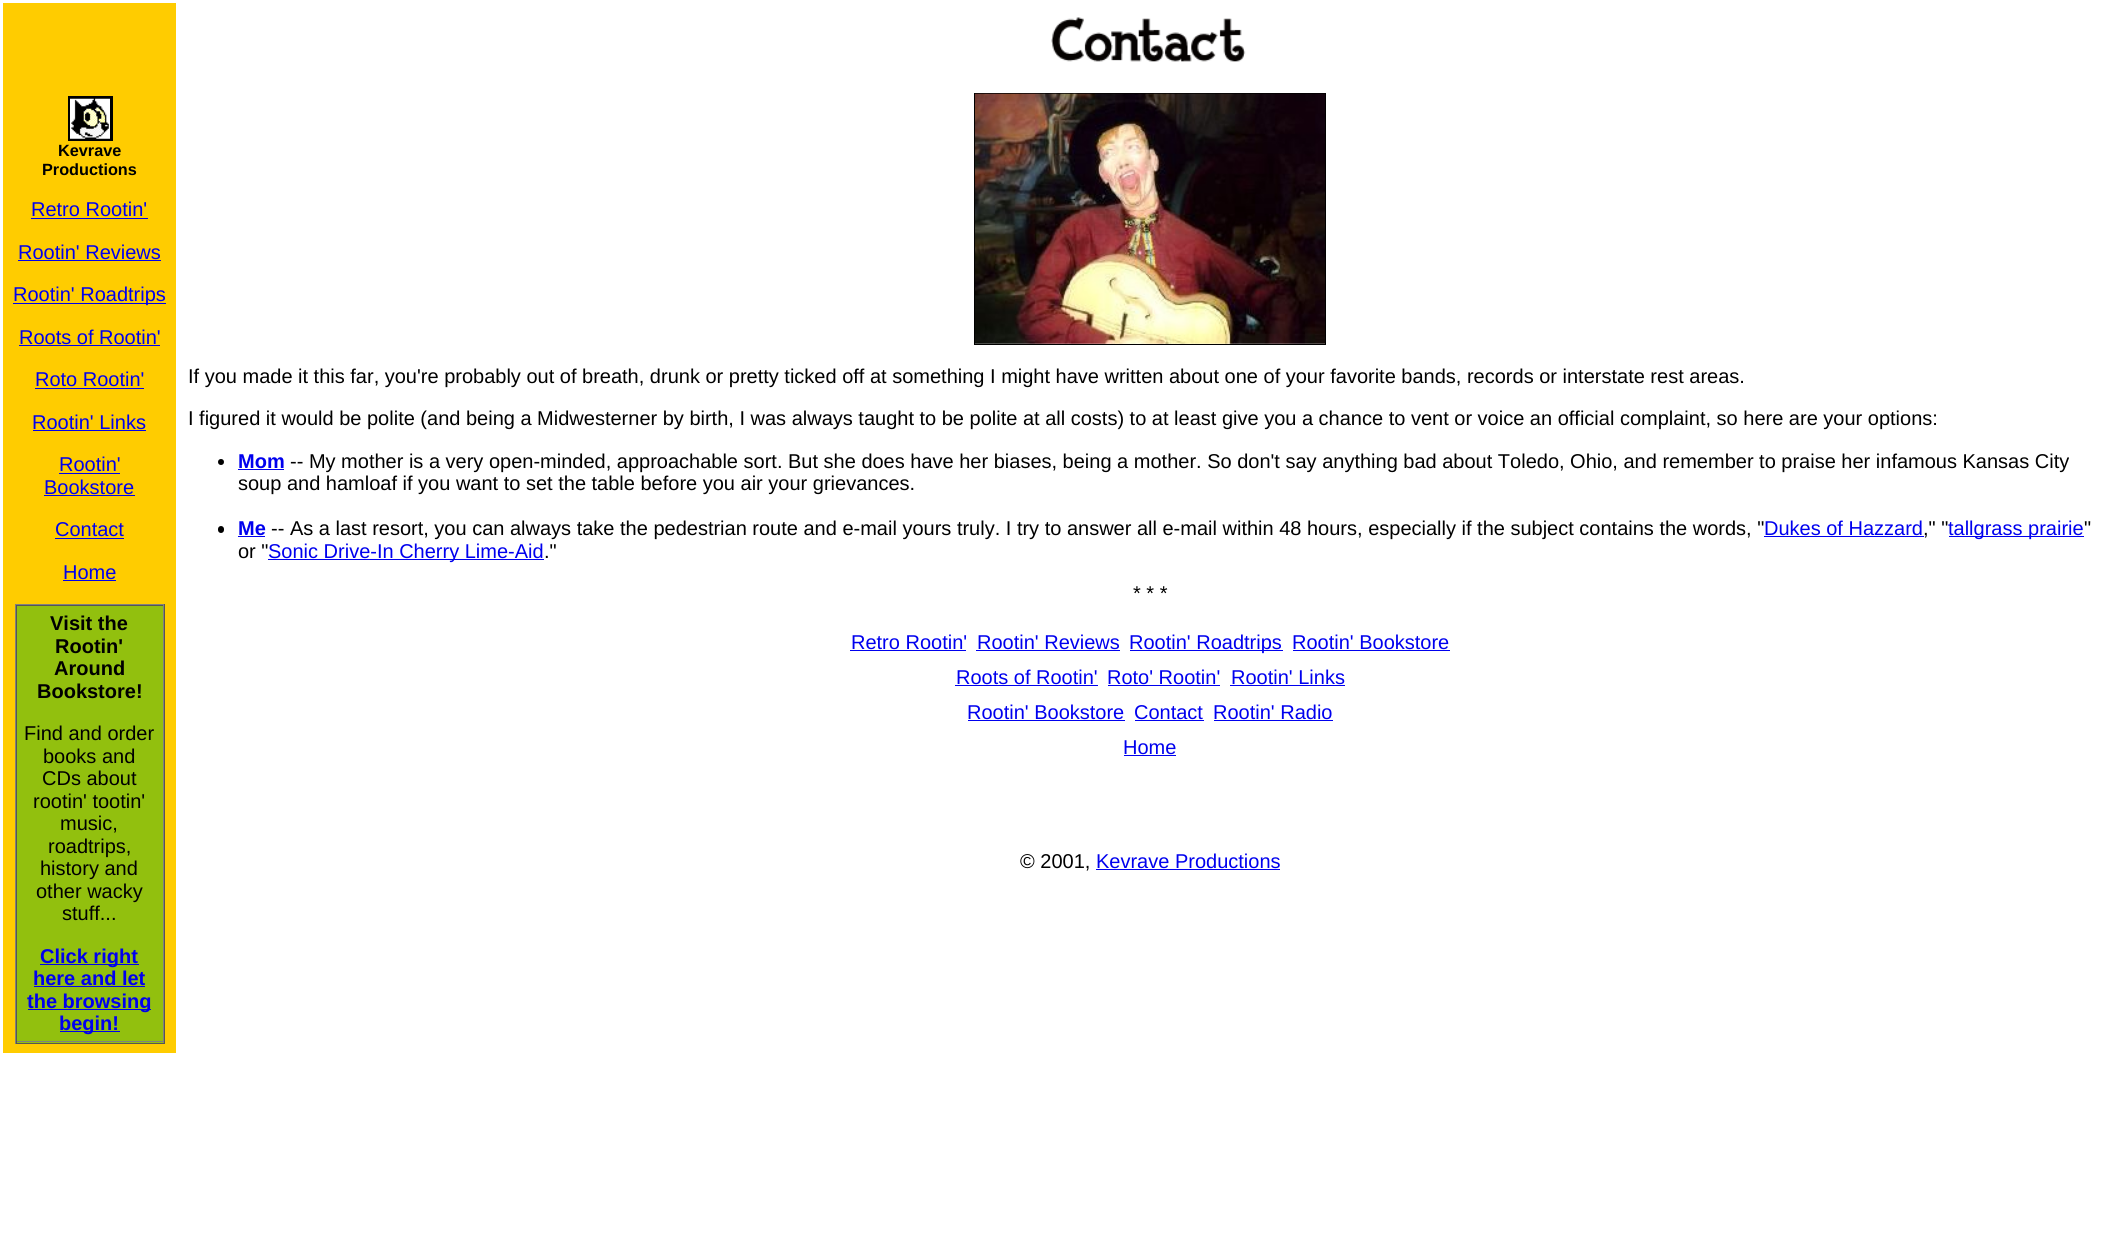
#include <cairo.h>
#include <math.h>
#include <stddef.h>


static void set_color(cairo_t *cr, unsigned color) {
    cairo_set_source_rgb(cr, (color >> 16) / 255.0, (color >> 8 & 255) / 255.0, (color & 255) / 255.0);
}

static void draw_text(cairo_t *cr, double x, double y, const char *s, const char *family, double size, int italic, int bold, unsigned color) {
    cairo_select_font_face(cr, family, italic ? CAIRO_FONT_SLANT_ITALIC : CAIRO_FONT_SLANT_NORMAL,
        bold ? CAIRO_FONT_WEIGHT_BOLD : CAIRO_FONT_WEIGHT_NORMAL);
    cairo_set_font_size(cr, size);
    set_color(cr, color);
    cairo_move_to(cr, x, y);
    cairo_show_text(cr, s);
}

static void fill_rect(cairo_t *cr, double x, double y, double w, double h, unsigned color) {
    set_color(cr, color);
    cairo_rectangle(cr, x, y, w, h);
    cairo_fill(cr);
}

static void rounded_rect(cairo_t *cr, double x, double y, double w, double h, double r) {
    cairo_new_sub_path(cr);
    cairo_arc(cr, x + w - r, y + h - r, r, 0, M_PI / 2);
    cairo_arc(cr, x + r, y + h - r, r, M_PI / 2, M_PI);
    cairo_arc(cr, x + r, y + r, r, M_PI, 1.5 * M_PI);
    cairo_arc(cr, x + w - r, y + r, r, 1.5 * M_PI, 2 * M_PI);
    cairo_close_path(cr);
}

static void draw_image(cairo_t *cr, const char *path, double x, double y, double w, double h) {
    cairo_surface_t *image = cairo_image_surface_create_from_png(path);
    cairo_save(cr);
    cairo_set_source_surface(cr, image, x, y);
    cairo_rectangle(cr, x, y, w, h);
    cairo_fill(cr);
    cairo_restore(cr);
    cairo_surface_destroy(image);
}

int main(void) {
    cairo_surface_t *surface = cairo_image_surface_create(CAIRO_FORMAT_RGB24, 2123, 1250);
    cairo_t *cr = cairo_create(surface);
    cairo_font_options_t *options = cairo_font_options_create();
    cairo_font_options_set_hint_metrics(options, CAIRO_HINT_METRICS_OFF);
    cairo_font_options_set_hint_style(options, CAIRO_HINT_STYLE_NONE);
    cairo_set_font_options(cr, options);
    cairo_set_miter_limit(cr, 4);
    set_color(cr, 0xFFFFFF);
    cairo_paint(cr);
    fill_rect(cr, 3, 3, 173, 1050, 0xFFCC00);
    cairo_rectangle(cr, 69.5, 97.5, 42, 42);
    set_color(cr, 0x000000);
    cairo_set_line_width(cr, 3);
    cairo_stroke(cr);
    draw_image(cr, "assets/img1.png", 70, 98, 40, 41);
    draw_text(cr, 58, 156, "Kevrave", "Liberation Sans", 16.25, 0, 1, 0x000000);
    draw_text(cr, 42, 175, "Productions", "Liberation Sans", 16.25, 0, 1, 0x000000);
    draw_text(cr, 31, 216, "Retro Rootin'", "Liberation Sans", 20, 0, 0, 0x0000EE);
    fill_rect(cr, 31, 218, 117, 1, 0x0000EE);
    draw_text(cr, 18, 259, "Rootin' Reviews", "Liberation Sans", 20, 0, 0, 0x0000EE);
    fill_rect(cr, 18, 260, 143, 1, 0x0000EE);
    fill_rect(cr, 13, 303, 153, 1, 0x0000EE);
    draw_text(cr, 13, 301, "Rootin' Roadtrips", "Liberation Sans", 20, 0, 0, 0x0000EE);
    draw_text(cr, 19, 344, "Roots of Rootin'", "Liberation Sans", 20, 0, 0, 0x0000EE);
    fill_rect(cr, 19, 345, 141, 1, 0x0000EE);
    draw_text(cr, 35, 386, "Roto Rootin'", "Liberation Sans", 20, 0, 0, 0x0000EE);
    fill_rect(cr, 35, 388, 109, 1, 0x0000EE);
    draw_text(cr, 32, 429, "Rootin' Links", "Liberation Sans", 20, 0, 0, 0x0000EE);
    fill_rect(cr, 33, 430, 113, 1, 0x0000EE);
    draw_text(cr, 59, 471, "Rootin'", "Liberation Sans", 20, 0, 0, 0x0000EE);
    fill_rect(cr, 59, 473, 61, 1, 0x0000EE);
    draw_text(cr, 44, 494, "Bookstore", "Liberation Sans", 20, 0, 0, 0x0000EE);
    fill_rect(cr, 44, 495, 91, 1, 0x0000EE);
    draw_text(cr, 55, 536, "Contact", "Liberation Sans", 20, 0, 0, 0x0000EE);
    fill_rect(cr, 55, 538, 69, 1, 0x0000EE);
    draw_text(cr, 63, 579, "Home", "Liberation Sans", 20, 0, 0, 0x0000EE);
    fill_rect(cr, 63, 580, 53, 1, 0x0000EE);
    fill_rect(cr, 15, 604, 150, 1, 0x808080);
    fill_rect(cr, 164, 604, 1, 440, 0x555555);
    fill_rect(cr, 15, 1043, 150, 1, 0x555555);
    fill_rect(cr, 15, 604, 1, 440, 0x808080);
    fill_rect(cr, 17, 606, 146, 437, 0x92C00E);
    fill_rect(cr, 16, 605, 148, 1, 0x555555);
    fill_rect(cr, 163, 605, 1, 438, 0x808080);
    fill_rect(cr, 16, 1041, 148, 1, 0x808080);
    fill_rect(cr, 16, 605, 1, 438, 0x555555);
    draw_text(cr, 50, 630, "Visit the", "Liberation Sans", 20, 0, 1, 0x000000);
    draw_text(cr, 55, 653, "Rootin'", "Liberation Sans", 20, 0, 1, 0x000000);
    draw_text(cr, 54, 675, "Around", "Liberation Sans", 20, 0, 1, 0x000000);
    draw_text(cr, 37, 698, "Bookstore!", "Liberation Sans", 20, 0, 1, 0x000000);
    draw_text(cr, 24, 740, "Find and order", "Liberation Sans", 20, 0, 0, 0x000000);
    draw_text(cr, 43, 763, "books and", "Liberation Sans", 20, 0, 0, 0x000000);
    draw_text(cr, 42, 785, "CDs about", "Liberation Sans", 20, 0, 0, 0x000000);
    draw_text(cr, 33, 808, "rootin' tootin'", "Liberation Sans", 20, 0, 0, 0x000000);
    draw_text(cr, 60, 830, "music,", "Liberation Sans", 20, 0, 0, 0x000000);
    draw_text(cr, 48, 853, "roadtrips,", "Liberation Sans", 20, 0, 0, 0x000000);
    draw_text(cr, 40, 875, "history and", "Liberation Sans", 20, 0, 0, 0x000000);
    draw_text(cr, 36, 898, "other wacky", "Liberation Sans", 20, 0, 0, 0x000000);
    draw_text(cr, 62, 920, "stuff...", "Liberation Sans", 20, 0, 0, 0x000000);
    fill_rect(cr, 40, 964, 99, 1, 0x0000EE);
    draw_text(cr, 40, 963, "Click right", "Liberation Sans", 20, 0, 1, 0x0000EE);
    draw_text(cr, 33, 985, "here and let", "Liberation Sans", 20, 0, 1, 0x0000EE);
    fill_rect(cr, 34, 986, 111, 1, 0x0000EE);
    fill_rect(cr, 28, 1009, 123, 1, 0x0000EE);
    draw_text(cr, 27, 1008, "the browsing", "Liberation Sans", 20, 0, 1, 0x0000EE);
    fill_rect(cr, 60, 1031, 60, 1, 0x0000EE);
    draw_text(cr, 59, 1030, "begin!", "Liberation Sans", 20, 0, 1, 0x0000EE);
    draw_image(cr, "assets/img2.png", 1051, 17, 195, 45);
    cairo_rectangle(cr, 974.5, 93.5, 351, 251);
    set_color(cr, 0x000000);
    cairo_set_line_width(cr, 1);
    cairo_stroke(cr);
    draw_image(cr, "assets/img3.png", 975, 93, 350, 251);
    draw_text(cr, 188, 383, "If you made it this far, you're probably out of breath, drunk or pretty ticked off at something I might have written about one of your favorite bands, records or interstate rest areas.", "Liberation Sans", 20, 0, 0, 0x000000);
    draw_text(cr, 188, 425, "I figured it would be polite (and being a Midwesterner by birth, I was always taught to be polite at all costs) to at least give you a chance to vent or voice an official complaint, so here are your options:", "Liberation Sans", 20, 0, 0, 0x000000);
    cairo_new_path(cr);
    cairo_arc(cr, 221, 462, 3, 0, 2 * M_PI);
    cairo_fill(cr);
    draw_text(cr, 238, 468, "Mom", "Liberation Sans", 20, 0, 1, 0x0000EE);
    fill_rect(cr, 238, 469, 46, 1, 0x0000EE);
    draw_text(cr, 290, 468, "-- My mother is a very open-minded, approachable sort. But she does have her biases, being a mother. So don't say anything bad about Toledo, Ohio, and remember to praise her infamous Kansas City", "Liberation Sans", 20, 0, 0, 0x000000);
    draw_text(cr, 238, 490, "soup and hamloaf if you want to set the table before you air your grievances.", "Liberation Sans", 20, 0, 0, 0x000000);
    draw_text(cr, 238, 535, "Me", "Liberation Sans", 20, 0, 1, 0x0000EE);
    fill_rect(cr, 238, 536, 27, 1, 0x0000EE);
    draw_text(cr, 271, 535, "-- As a last resort, you can always take the pedestrian route and e-mail yours truly. I try to answer all e-mail within 48 hours, especially if the subject contains the words, \"", "Liberation Sans", 20, 0, 0, 0x000000);
    fill_rect(cr, 1764, 536, 160, 1, 0x0000EE);
    draw_text(cr, 1764, 535, "Dukes of Hazzard", "Liberation Sans", 20, 0, 0, 0x0000EE);
    draw_text(cr, 1923, 535, ",\" \"", "Liberation Sans", 20, 0, 0, 0x000000);
    fill_rect(cr, 1949, 536, 135, 1, 0x0000EE);
    draw_text(cr, 1948, 535, "tallgrass prairie", "Liberation Sans", 20, 0, 0, 0x0000EE);
    draw_text(cr, 2084, 535, "\"", "Liberation Sans", 20, 0, 0, 0x000000);
    rounded_rect(cr, 218, 526, 6, 7, 3);
    cairo_fill(cr);
    draw_text(cr, 238, 558, "or \"", "Liberation Sans", 20, 0, 0, 0x000000);
    fill_rect(cr, 268, 559, 276, 1, 0x0000EE);
    draw_text(cr, 268, 558, "Sonic Drive-In Cherry Lime-Aid", "Liberation Sans", 20, 0, 0, 0x0000EE);
    draw_text(cr, 544, 558, ".\"", "Liberation Sans", 20, 0, 0, 0x000000);
    draw_text(cr, 1133, 600, "* * *", "Liberation Sans", 20, 0, 0, 0x000000);
    draw_text(cr, 851, 649, "Retro Rootin'", "Liberation Sans", 20, 0, 0, 0x0000EE);
    fill_rect(cr, 850, 650, 116, 1, 0x0000EE);
    draw_text(cr, 977, 649, "Rootin' Reviews", "Liberation Sans", 20, 0, 0, 0x0000EE);
    fill_rect(cr, 976, 650, 144, 1, 0x0000EE);
    fill_rect(cr, 1130, 650, 153, 1, 0x0000EE);
    draw_text(cr, 1129, 649, "Rootin' Roadtrips", "Liberation Sans", 20, 0, 0, 0x0000EE);
    draw_text(cr, 1292, 649, "Rootin' Bookstore", "Liberation Sans", 20, 0, 0, 0x0000EE);
    fill_rect(cr, 1293, 650, 157, 1, 0x0000EE);
    draw_text(cr, 956, 684, "Roots of Rootin'", "Liberation Sans", 20, 0, 0, 0x0000EE);
    fill_rect(cr, 955, 685, 143, 1, 0x0000EE);
    draw_text(cr, 1107, 684, "Roto' Rootin'", "Liberation Sans", 20, 0, 0, 0x0000EE);
    fill_rect(cr, 1108, 685, 112, 1, 0x0000EE);
    draw_text(cr, 1231, 684, "Rootin' Links", "Liberation Sans", 20, 0, 0, 0x0000EE);
    fill_rect(cr, 1230, 685, 115, 1, 0x0000EE);
    draw_text(cr, 967, 719, "Rootin' Bookstore", "Liberation Sans", 20, 0, 0, 0x0000EE);
    fill_rect(cr, 968, 720, 157, 1, 0x0000EE);
    draw_text(cr, 1134, 719, "Contact", "Liberation Sans", 20, 0, 0, 0x0000EE);
    fill_rect(cr, 1135, 720, 69, 1, 0x0000EE);
    draw_text(cr, 1213, 719, "Rootin' Radio", "Liberation Sans", 20, 0, 0, 0x0000EE);
    fill_rect(cr, 1214, 720, 119, 1, 0x0000EE);
    draw_text(cr, 1123, 754, "Home", "Liberation Sans", 20, 0, 0, 0x0000EE);
    fill_rect(cr, 1124, 755, 52, 1, 0x0000EE);
    draw_text(cr, 1020, 868, "© 2001,", "Liberation Sans", 20, 0, 0, 0x000000);
    draw_text(cr, 1096, 868, "Kevrave Productions", "Liberation Sans", 20, 0, 0, 0x0000EE);
    fill_rect(cr, 1096, 869, 184, 1, 0x0000EE);
    cairo_surface_write_to_png(surface, "output.png");
    cairo_font_options_destroy(options);
    cairo_destroy(cr);
    cairo_surface_destroy(surface);
    return 0;
}
